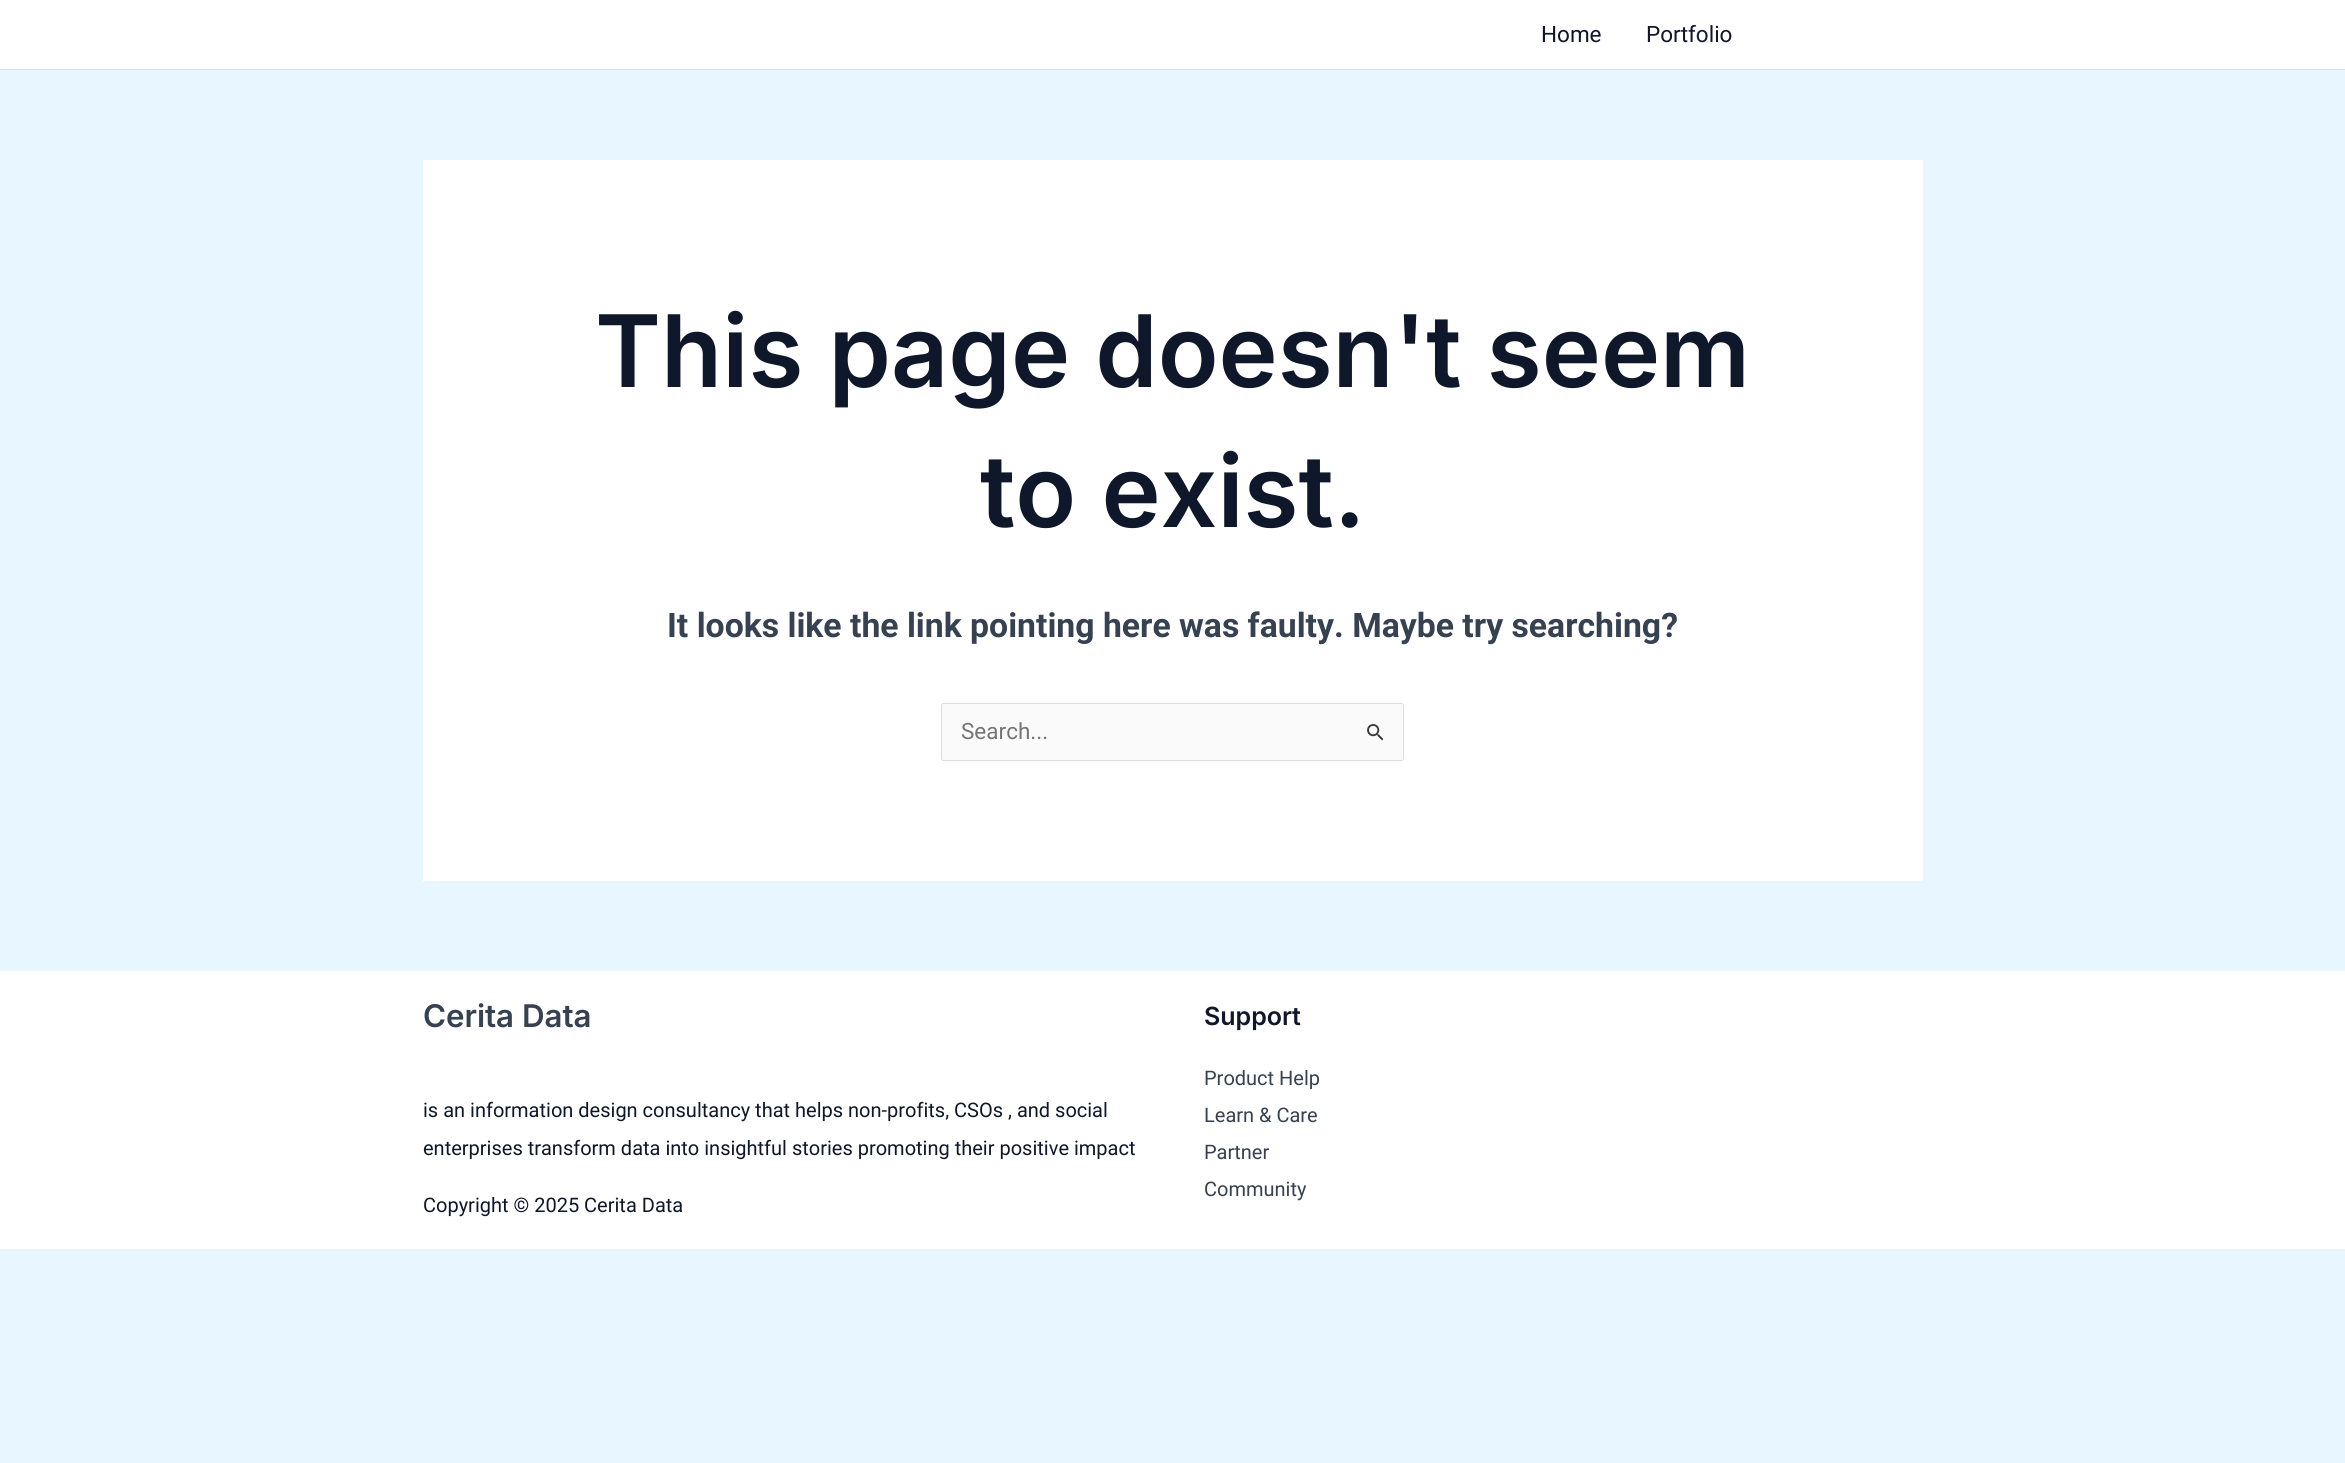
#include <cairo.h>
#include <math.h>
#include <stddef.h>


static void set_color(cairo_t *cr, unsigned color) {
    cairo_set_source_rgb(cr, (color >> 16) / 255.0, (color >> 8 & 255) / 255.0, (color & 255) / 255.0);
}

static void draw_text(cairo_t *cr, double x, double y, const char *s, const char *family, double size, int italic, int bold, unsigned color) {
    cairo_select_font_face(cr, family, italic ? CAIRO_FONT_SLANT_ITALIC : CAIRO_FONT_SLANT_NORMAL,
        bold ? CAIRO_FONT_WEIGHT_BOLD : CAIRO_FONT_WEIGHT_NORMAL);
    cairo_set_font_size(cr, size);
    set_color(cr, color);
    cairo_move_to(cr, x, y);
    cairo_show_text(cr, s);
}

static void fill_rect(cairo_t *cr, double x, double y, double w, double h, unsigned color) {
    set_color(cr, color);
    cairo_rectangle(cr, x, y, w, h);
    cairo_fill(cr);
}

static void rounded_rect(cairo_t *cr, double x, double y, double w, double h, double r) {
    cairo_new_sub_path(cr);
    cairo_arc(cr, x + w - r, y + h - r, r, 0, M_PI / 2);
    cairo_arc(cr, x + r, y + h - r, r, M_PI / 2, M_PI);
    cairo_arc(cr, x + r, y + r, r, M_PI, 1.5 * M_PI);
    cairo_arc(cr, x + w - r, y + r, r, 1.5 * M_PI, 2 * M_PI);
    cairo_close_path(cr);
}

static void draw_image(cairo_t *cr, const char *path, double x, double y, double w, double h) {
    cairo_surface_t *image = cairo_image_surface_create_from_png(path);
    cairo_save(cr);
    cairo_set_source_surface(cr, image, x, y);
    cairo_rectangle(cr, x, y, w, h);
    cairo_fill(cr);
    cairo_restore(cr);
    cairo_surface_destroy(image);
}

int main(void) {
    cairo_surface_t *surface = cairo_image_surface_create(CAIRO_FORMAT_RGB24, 2345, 1463);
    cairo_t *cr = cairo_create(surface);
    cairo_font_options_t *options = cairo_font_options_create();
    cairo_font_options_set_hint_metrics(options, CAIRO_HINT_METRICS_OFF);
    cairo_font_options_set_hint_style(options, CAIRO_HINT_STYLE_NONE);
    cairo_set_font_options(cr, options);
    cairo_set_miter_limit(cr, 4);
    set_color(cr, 0xE7F6FF);
    cairo_paint(cr);
    fill_rect(cr, 0, 0, 2345, 69, 0xFFFFFF);
    fill_rect(cr, 0, 69, 2345, 1, 0xDDDDDD);
    draw_text(cr, 1541, 42, "Home", "Roboto", 22.5, 0, 0, 0x0F172A);
    draw_text(cr, 1646, 42, "Portfolio", "Roboto", 22.5, 0, 0, 0x0F172A);
    fill_rect(cr, 423, 160, 1500, 721, 0xFFFFFF);
    draw_text(cr, 595, 387, "This page doesn't seem", "Inter SemiBold", 100, 0, 0, 0x0F172A);
    draw_text(cr, 980, 527, "to exist.", "Inter SemiBold", 100, 0, 0, 0x0F172A);
    draw_text(cr, 667, 637, "It looks like the link pointing here was faulty. Maybe try searching?", "Roboto", 33.75, 0, 1, 0x364151);
    set_color(cr, 0xFAFAFA);
    rounded_rect(cr, 941.5, 703.5, 462, 57, 2);
    cairo_fill_preserve(cr);
    set_color(cr, 0xDDDDDD);
    cairo_set_line_width(cr, 1);
    cairo_stroke(cr);
    draw_text(cr, 961, 739, "Search...", "Roboto", 22.5, 0, 0, 0x757575);
    draw_image(cr, "assets/img1.png", 1367, 724, 16, 17);
    fill_rect(cr, 0, 971, 2345, 278, 0xFFFFFF);
    draw_text(cr, 423, 1027, "Cerita Data", "Inter SemiBold", 31.25, 0, 0, 0x364151);
    draw_text(cr, 423, 1117, "is an information design consultancy that helps non-profits, CSOs , and social", "Roboto", 20, 0, 0, 0x0F172A);
    draw_text(cr, 423, 1155, "enterprises transform data into insightful stories promoting their positive impact", "Roboto", 20, 0, 0, 0x0F172A);
    draw_text(cr, 423, 1212, "Copyright © 2025 Cerita Data", "Roboto", 20, 0, 0, 0x0F172A);
    draw_text(cr, 1204, 1025, "Support", "Inter SemiBold", 25, 0, 0, 0x0F172A);
    draw_text(cr, 1204, 1085, "Product Help", "Roboto", 20, 0, 0, 0x364151);
    draw_text(cr, 1204, 1122, "Learn & Care", "Roboto", 20, 0, 0, 0x364151);
    draw_text(cr, 1204, 1159, "Partner", "Roboto", 20, 0, 0, 0x364151);
    draw_text(cr, 1204, 1196, "Community", "Roboto", 20, 0, 0, 0x364151);
    cairo_surface_write_to_png(surface, "output.png");
    cairo_font_options_destroy(options);
    cairo_destroy(cr);
    cairo_surface_destroy(surface);
    return 0;
}
